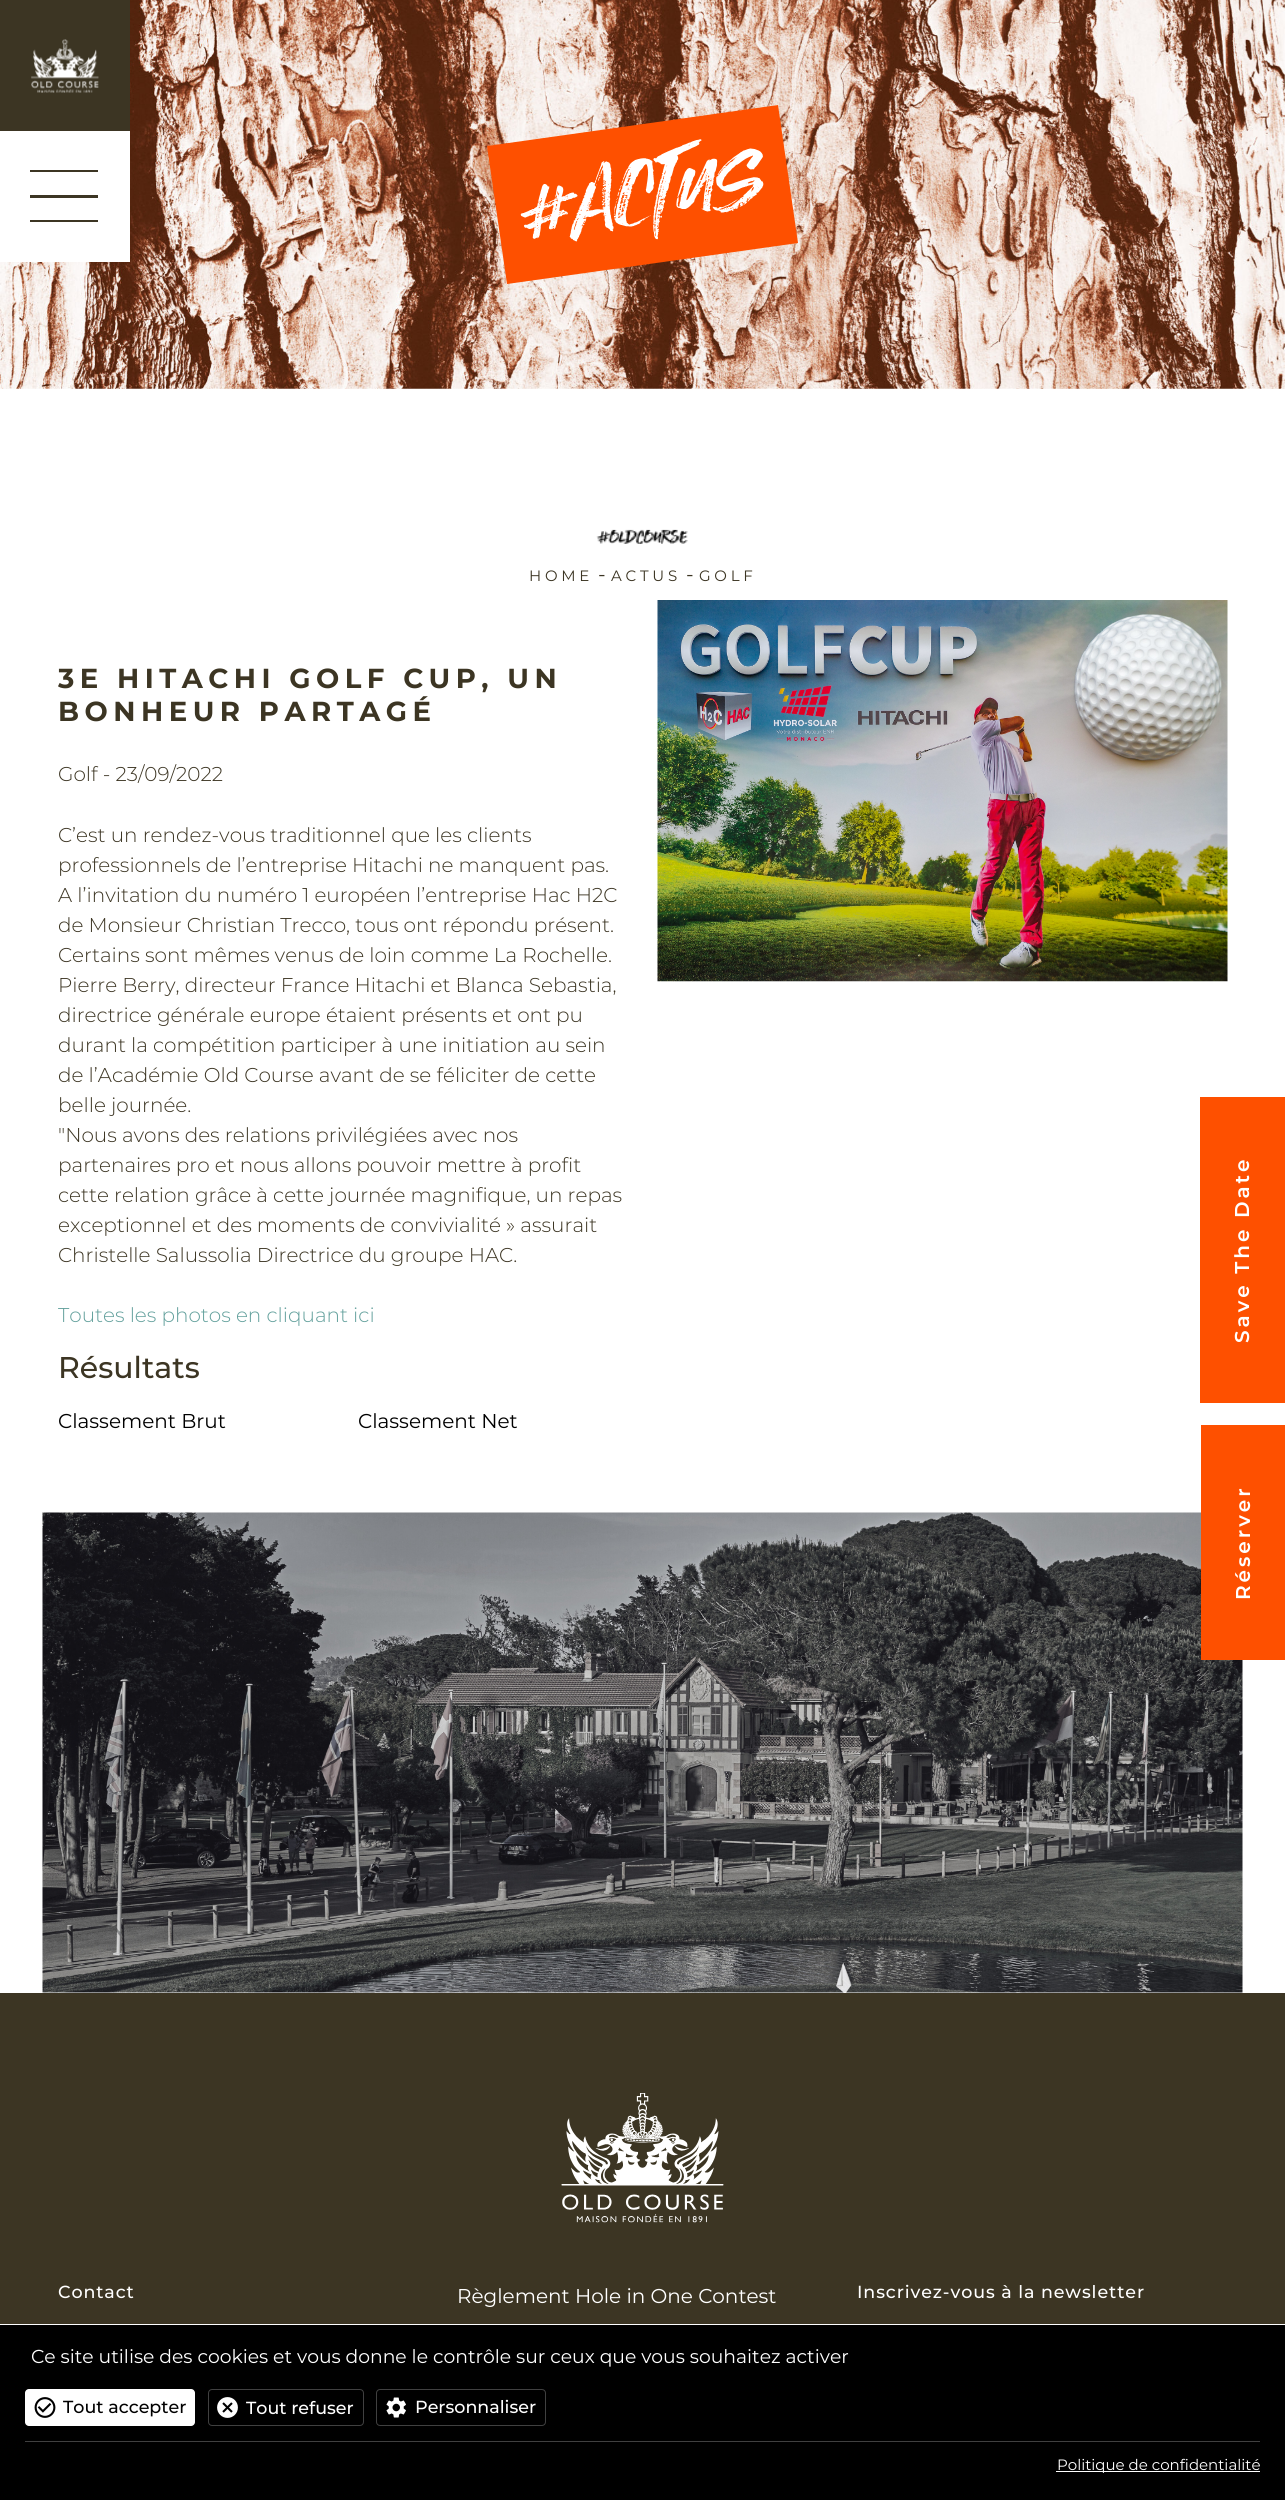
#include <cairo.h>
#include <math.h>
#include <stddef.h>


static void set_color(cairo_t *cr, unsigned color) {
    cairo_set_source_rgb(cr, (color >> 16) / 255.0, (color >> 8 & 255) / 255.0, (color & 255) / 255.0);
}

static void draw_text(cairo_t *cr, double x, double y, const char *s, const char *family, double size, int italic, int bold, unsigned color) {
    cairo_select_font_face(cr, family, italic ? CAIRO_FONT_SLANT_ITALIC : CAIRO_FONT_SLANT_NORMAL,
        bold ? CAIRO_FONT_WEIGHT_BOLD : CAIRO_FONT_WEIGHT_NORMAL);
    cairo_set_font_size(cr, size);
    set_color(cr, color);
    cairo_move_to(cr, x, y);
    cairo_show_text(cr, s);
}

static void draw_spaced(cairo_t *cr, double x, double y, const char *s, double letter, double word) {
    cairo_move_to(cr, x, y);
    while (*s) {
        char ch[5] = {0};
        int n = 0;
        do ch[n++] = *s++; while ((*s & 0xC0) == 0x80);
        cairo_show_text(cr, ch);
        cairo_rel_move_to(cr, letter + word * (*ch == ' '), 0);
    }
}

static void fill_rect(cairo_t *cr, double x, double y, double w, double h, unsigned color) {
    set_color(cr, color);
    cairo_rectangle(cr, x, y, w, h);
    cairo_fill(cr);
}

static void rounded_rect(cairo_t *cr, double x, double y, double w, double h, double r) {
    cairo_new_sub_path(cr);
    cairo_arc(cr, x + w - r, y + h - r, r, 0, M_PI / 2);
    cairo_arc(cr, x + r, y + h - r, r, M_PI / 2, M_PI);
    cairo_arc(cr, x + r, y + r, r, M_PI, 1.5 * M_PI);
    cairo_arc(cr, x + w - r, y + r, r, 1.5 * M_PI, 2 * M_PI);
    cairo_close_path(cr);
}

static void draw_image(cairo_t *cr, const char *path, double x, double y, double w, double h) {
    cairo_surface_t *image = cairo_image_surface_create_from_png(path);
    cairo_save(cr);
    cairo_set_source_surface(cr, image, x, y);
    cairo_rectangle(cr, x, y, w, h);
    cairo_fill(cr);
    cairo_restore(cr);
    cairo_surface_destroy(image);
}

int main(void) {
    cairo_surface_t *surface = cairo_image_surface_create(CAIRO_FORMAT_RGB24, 1285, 2500);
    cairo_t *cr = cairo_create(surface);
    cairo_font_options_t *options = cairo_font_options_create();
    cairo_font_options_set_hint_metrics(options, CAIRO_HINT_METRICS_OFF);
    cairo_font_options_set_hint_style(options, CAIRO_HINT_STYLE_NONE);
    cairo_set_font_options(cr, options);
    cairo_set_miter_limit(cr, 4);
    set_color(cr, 0xFFFFFF);
    cairo_paint(cr);
    draw_image(cr, "assets/img4.png", 0, 0, 1285, 389);
    fill_rect(cr, 0, 0, 130, 131, 0x3C3523);
    draw_image(cr, "assets/img1.png", 31, 39, 68, 54);
    fill_rect(cr, 0, 131, 130, 131, 0xFFFFFF);
    fill_rect(cr, 30, 170, 68, 2, 0x3C3523);
    fill_rect(cr, 30, 195, 68, 3, 0x3C3523);
    fill_rect(cr, 30, 220, 68, 2, 0x3C3523);
    draw_image(cr, "assets/img2.png", 596, 529, 92, 15);
    cairo_select_font_face(cr, "Montserrat", CAIRO_FONT_SLANT_NORMAL, CAIRO_FONT_WEIGHT_NORMAL);
    cairo_set_font_size(cr, 15);
    draw_spaced(cr, 529, 581, "HOME", 3.75, 0);
    draw_text(cr, 598, 581, "-", "Montserrat", 20, 0, 0, 0x3C3523);
    cairo_set_font_size(cr, 15);
    draw_spaced(cr, 611, 581, "ACTUS", 3.75, 0);
    draw_text(cr, 686, 581, "-", "Montserrat", 20, 0, 0, 0x3C3523);
    cairo_set_font_size(cr, 15);
    draw_spaced(cr, 699, 581, "GOLF", 3.75, 0);
    cairo_select_font_face(cr, "Montserrat", CAIRO_FONT_SLANT_NORMAL, CAIRO_FONT_WEIGHT_BOLD);
    cairo_set_font_size(cr, 27.5);
    draw_spaced(cr, 58, 688, "3E HITACHI GOLF CUP, UN", 5.5, 0);
    draw_spaced(cr, 58, 721, "BONHEUR PARTAGÉ", 5.5, 0);
    draw_text(cr, 58, 781, "Golf - 23/09/2022", "Montserrat Light", 20, 0, 0, 0x3C3523);
    draw_text(cr, 58, 842, "C’est un rendez-vous traditionnel que les clients", "Montserrat Light", 20, 0, 0, 0x3C3523);
    draw_text(cr, 58, 872, "professionnels de l’entreprise Hitachi ne manquent pas.", "Montserrat Light", 20, 0, 0, 0x3C3523);
    draw_text(cr, 58, 902, "A l’invitation du numéro 1 européen l’entreprise Hac H2C", "Montserrat Light", 20, 0, 0, 0x3C3523);
    draw_text(cr, 58, 932, "de Monsieur Christian Trecco, tous ont répondu présent.", "Montserrat Light", 20, 0, 0, 0x3C3523);
    draw_text(cr, 58, 962, "Certains sont mêmes venus de loin comme La Rochelle.", "Montserrat Light", 20, 0, 0, 0x3C3523);
    draw_text(cr, 58, 992, "Pierre Berry, directeur France Hitachi et Blanca Sebastia,", "Montserrat Light", 20, 0, 0, 0x3C3523);
    draw_text(cr, 58, 1022, "directrice générale europe étaient présents et ont pu", "Montserrat Light", 20, 0, 0, 0x3C3523);
    draw_text(cr, 58, 1052, "durant la compétition participer à une initiation au sein", "Montserrat Light", 20, 0, 0, 0x3C3523);
    draw_text(cr, 58, 1082, "de l’Académie Old Course avant de se féliciter de cette", "Montserrat Light", 20, 0, 0, 0x3C3523);
    draw_text(cr, 58, 1112, "belle journée.", "Montserrat Light", 20, 0, 0, 0x3C3523);
    draw_text(cr, 58, 1142, "\"Nous avons des relations privilégiées avec nos", "Montserrat Light", 20, 0, 0, 0x3C3523);
    draw_text(cr, 58, 1172, "partenaires pro et nous allons pouvoir mettre à profit", "Montserrat Light", 20, 0, 0, 0x3C3523);
    draw_text(cr, 58, 1202, "cette relation grâce à cette journée magnifique, un repas", "Montserrat Light", 20, 0, 0, 0x3C3523);
    draw_text(cr, 58, 1232, "exceptionnel et des moments de convivialité » assurait", "Montserrat Light", 20, 0, 0, 0x3C3523);
    draw_text(cr, 58, 1262, "Christelle Salussolia Directrice du groupe HAC.", "Montserrat Light", 20, 0, 0, 0x3C3523);
    draw_text(cr, 58, 1322, "Toutes les photos en cliquant ici", "Montserrat Light", 20, 0, 0, 0x64A19D);
    draw_text(cr, 58, 1378, "Résultats", "Montserrat Medium", 30, 0, 0, 0x3C3523);
    draw_text(cr, 58, 1428, "Classement Brut", "Montserrat", 20, 0, 0, 0x000000);
    draw_text(cr, 358, 1428, "Classement Net", "Montserrat", 20, 0, 0, 0x000000);
    draw_image(cr, "assets/img3.png", 657, 600, 571, 382);
    set_color(cr, 0xFE5000);
    cairo_new_path(cr);
    cairo_move_to(cr, 487, 146);
    cairo_line_to(cr, 778, 105);
    cairo_line_to(cr, 798, 243);
    cairo_line_to(cr, 507, 284);
    cairo_close_path(cr);
    cairo_fill(cr);
    draw_image(cr, "assets/img5.png", 520, 139, 244, 103);
    fill_rect(cr, 1200, 1097, 85, 306, 0xFE5000);
    cairo_select_font_face(cr, "Montserrat SemiBold", CAIRO_FONT_SLANT_NORMAL, CAIRO_FONT_WEIGHT_NORMAL);
    set_color(cr, 0xFFFFFF);
    cairo_save(cr);
    cairo_translate(cr, 1249, 1343);
    cairo_rotate(cr, -90 * M_PI / 180);
    draw_spaced(cr, 0, 0, "Save The Date", 3, 0);
    cairo_restore(cr);
    draw_image(cr, "assets/img6.png", 42, 1512, 1201, 481);
    fill_rect(cr, 1201, 1425, 84, 235, 0xFE5000);
    set_color(cr, 0xFFFFFF);
    cairo_save(cr);
    cairo_translate(cr, 1250, 1600);
    cairo_rotate(cr, -90 * M_PI / 180);
    draw_spaced(cr, 0, 0, "Réserver", 3, 0);
    cairo_restore(cr);
    fill_rect(cr, 0, 1993, 1285, 331, 0x3C3523);
    draw_image(cr, "assets/img7.png", 561, 2093, 163, 130);
    cairo_select_font_face(cr, "Montserrat Medium", CAIRO_FONT_SLANT_NORMAL, CAIRO_FONT_WEIGHT_NORMAL);
    cairo_set_font_size(cr, 17.5);
    set_color(cr, 0xFFFFFF);
    draw_spaced(cr, 58, 2298, "Contact", 0.9, 0);
    draw_text(cr, 457, 2303, "Règlement Hole in One Contest", "Montserrat", 20, 0, 0, 0xFFFFFF);
    cairo_select_font_face(cr, "Montserrat Medium", CAIRO_FONT_SLANT_NORMAL, CAIRO_FONT_WEIGHT_NORMAL);
    cairo_set_font_size(cr, 17.5);
    draw_spaced(cr, 857, 2298, "Inscrivez-vous à la newsletter", 0.9, 0);
    fill_rect(cr, 0, 2325, 1285, 175, 0x000000);
    draw_text(cr, 31, 2363, "Ce site utilise des cookies et vous donne le contrôle sur ceux que vous souhaitez activer", "Montserrat", 18.75, 0, 0, 0xFFFFFF);
    rounded_rect(cr, 25, 2389, 170, 37, 4);
    cairo_fill(cr);
    draw_image(cr, "assets/img8.png", 34, 2397, 22, 21);
    draw_text(cr, 63, 2413, "Tout accepter", "Montserrat Medium", 17.5, 0, 0, 0x000000);
    rounded_rect(cr, 208.5, 2389.5, 155, 36, 3.5);
    set_color(cr, 0x404040);
    cairo_set_line_width(cr, 1);
    cairo_stroke(cr);
    draw_image(cr, "assets/img9.png", 217, 2397, 21, 21);
    draw_text(cr, 246, 2414, "Tout refuser", "Montserrat Medium", 17.5, 0, 0, 0xFFFFFF);
    rounded_rect(cr, 376.5, 2389.5, 169, 36, 3.5);
    set_color(cr, 0x404040);
    cairo_stroke(cr);
    draw_image(cr, "assets/img10.png", 386, 2397, 20, 21);
    draw_text(cr, 415, 2413, "Personnaliser", "Montserrat Medium", 17.5, 0, 0, 0xFFFFFF);
    fill_rect(cr, 25, 2441, 1235, 1, 0x404040);
    fill_rect(cr, 1056, 2471, 204, 1, 0xFFFFFF);
    draw_text(cr, 1057, 2470, "Politique de confidentialité", "Montserrat", 15, 0, 0, 0xFFFFFF);
    cairo_surface_write_to_png(surface, "output.png");
    cairo_font_options_destroy(options);
    cairo_destroy(cr);
    cairo_surface_destroy(surface);
    return 0;
}
